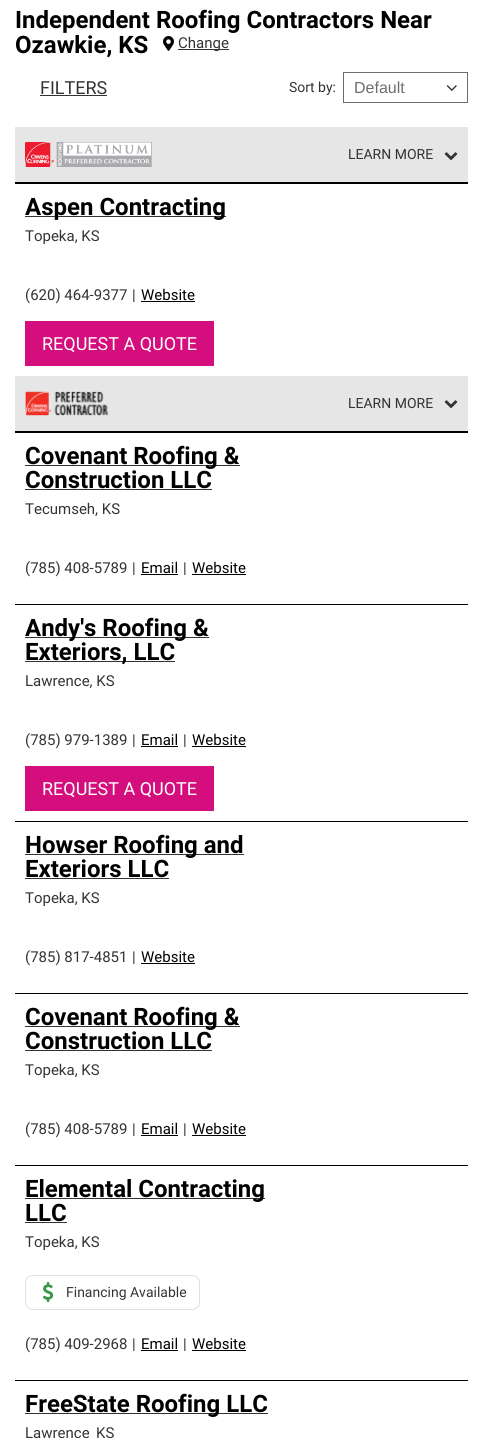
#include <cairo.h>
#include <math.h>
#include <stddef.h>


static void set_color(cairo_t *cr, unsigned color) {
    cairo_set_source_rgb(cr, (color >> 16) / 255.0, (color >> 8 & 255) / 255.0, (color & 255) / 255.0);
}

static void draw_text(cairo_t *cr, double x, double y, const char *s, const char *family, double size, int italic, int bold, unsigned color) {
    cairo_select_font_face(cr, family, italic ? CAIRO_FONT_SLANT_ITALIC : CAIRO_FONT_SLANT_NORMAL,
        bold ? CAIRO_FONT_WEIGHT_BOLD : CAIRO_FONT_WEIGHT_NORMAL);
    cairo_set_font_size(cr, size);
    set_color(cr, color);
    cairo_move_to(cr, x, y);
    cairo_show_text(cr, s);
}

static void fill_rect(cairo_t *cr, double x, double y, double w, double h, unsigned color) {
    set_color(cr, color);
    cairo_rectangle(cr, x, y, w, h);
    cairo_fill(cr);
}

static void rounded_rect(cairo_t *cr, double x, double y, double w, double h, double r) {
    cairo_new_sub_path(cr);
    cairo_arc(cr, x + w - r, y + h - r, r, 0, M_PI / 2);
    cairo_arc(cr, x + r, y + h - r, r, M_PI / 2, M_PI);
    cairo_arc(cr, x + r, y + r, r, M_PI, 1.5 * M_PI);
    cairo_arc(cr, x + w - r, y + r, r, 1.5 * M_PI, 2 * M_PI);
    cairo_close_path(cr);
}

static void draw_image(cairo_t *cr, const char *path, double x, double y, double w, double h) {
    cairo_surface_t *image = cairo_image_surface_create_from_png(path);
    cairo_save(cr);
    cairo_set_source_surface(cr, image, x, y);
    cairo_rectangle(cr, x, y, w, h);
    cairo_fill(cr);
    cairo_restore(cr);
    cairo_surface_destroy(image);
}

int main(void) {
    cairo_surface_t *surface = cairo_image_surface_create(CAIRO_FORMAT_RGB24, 483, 1438);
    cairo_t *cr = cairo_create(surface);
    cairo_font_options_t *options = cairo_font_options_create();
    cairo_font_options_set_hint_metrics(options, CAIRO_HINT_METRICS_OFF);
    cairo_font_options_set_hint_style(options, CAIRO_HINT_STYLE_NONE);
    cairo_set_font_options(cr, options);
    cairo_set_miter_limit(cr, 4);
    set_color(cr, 0xFFFFFF);
    cairo_paint(cr);
    draw_text(cr, 15, 28, "Independent Roofing Contractors Near", "Roboto", 24, 0, 1, 0x000000);
    draw_text(cr, 15, 53, "Ozawkie, KS", "Roboto", 24, 0, 1, 0x000000);
    draw_image(cr, "assets/img1.png", 163, 36, 11, 15);
    fill_rect(cr, 178, 49, 51, 1, 0x333333);
    draw_text(cr, 178, 48, "Change", "Roboto", 15, 0, 0, 0x333333);
    draw_text(cr, 40, 94, "FILTERS", "Roboto", 18, 0, 0, 0x333333);
    fill_rect(cr, 40, 95, 67, 1, 0x333333);
    draw_text(cr, 289, 92, "Sort by:", "Roboto", 14, 0, 0, 0x333333);
    cairo_rectangle(cr, 343.5, 72.5, 124, 30);
    set_color(cr, 0x6D6D6D);
    cairo_set_line_width(cr, 1);
    cairo_stroke(cr);
    draw_text(cr, 354, 93, "Default", "Liberation Sans", 16, 0, 0, 0x6D6D6D);
    draw_image(cr, "assets/img2.png", 446, 85, 11, 6);
    fill_rect(cr, 15, 127, 453, 55, 0xE6E6E6);
    fill_rect(cr, 15, 182, 453, 2, 0x000000);
    draw_image(cr, "assets/img3.png", 25, 142, 127, 25);
    draw_text(cr, 348, 159, "LEARN MORE", "Roboto", 14, 0, 0, 0x333333);
    draw_image(cr, "assets/img4.png", 444, 152, 14, 9);
    fill_rect(cr, 25, 216, 201, 1, 0x333333);
    draw_text(cr, 25, 215, "Aspen Contracting", "Roboto", 24, 0, 1, 0x000000);
    draw_text(cr, 25, 241, "Topeka, KS", "Roboto", 15, 0, 0, 0x333333);
    draw_text(cr, 25, 300, "(620) 464-9377", "Roboto", 15, 0, 0, 0x333333);
    draw_text(cr, 132, 300, "|", "Roboto", 15, 0, 0, 0x333333);
    draw_text(cr, 141, 300, "Website", "Roboto", 15, 0, 0, 0x000000);
    fill_rect(cr, 141, 301, 54, 1, 0x000000);
    fill_rect(cr, 25, 321, 189, 45, 0xD40F7D);
    draw_text(cr, 42, 350, "REQUEST A QUOTE", "Roboto", 18, 0, 0, 0xFFFFFF);
    fill_rect(cr, 15, 376, 453, 55, 0xE6E6E6);
    fill_rect(cr, 15, 431, 453, 2, 0x000000);
    draw_image(cr, "assets/img5.png", 25, 391, 84, 25);
    draw_text(cr, 348, 408, "LEARN MORE", "Roboto", 14, 0, 0, 0x333333);
    draw_image(cr, "assets/img4.png", 444, 400, 14, 9);
    fill_rect(cr, 15, 604, 453, 1, 0x000000);
    fill_rect(cr, 25, 465, 215, 1, 0x333333);
    draw_text(cr, 25, 464, "Covenant Roofing &", "Roboto", 24, 0, 1, 0x000000);
    draw_text(cr, 25, 488, "Construction LLC", "Roboto", 24, 0, 1, 0x000000);
    fill_rect(cr, 25, 489, 187, 1, 0x333333);
    draw_text(cr, 25, 514, "Tecumseh, KS", "Roboto", 15, 0, 0, 0x333333);
    draw_text(cr, 25, 573, "(785) 408-5789", "Roboto", 15, 0, 0, 0x333333);
    draw_text(cr, 132, 573, "|", "Roboto", 15, 0, 0, 0x333333);
    draw_text(cr, 141, 573, "Email", "Roboto", 15, 0, 0, 0x000000);
    fill_rect(cr, 141, 574, 37, 1, 0x000000);
    draw_text(cr, 183, 573, "|", "Roboto", 15, 0, 0, 0x333333);
    draw_text(cr, 192, 573, "Website", "Roboto", 15, 0, 0, 0x000000);
    fill_rect(cr, 192, 574, 54, 1, 0x000000);
    fill_rect(cr, 15, 821, 453, 1, 0x000000);
    fill_rect(cr, 25, 637, 184, 1, 0x333333);
    draw_text(cr, 25, 636, "Andy's Roofing &", "Roboto", 24, 0, 1, 0x000000);
    fill_rect(cr, 25, 661, 150, 1, 0x333333);
    draw_text(cr, 25, 660, "Exteriors, LLC", "Roboto", 24, 0, 1, 0x000000);
    draw_text(cr, 25, 686, "Lawrence, KS", "Roboto", 15, 0, 0, 0x333333);
    draw_text(cr, 25, 745, "(785) 979-1389", "Roboto", 15, 0, 0, 0x333333);
    draw_text(cr, 132, 745, "|", "Roboto", 15, 0, 0, 0x333333);
    draw_text(cr, 141, 745, "Email", "Roboto", 15, 0, 0, 0x000000);
    fill_rect(cr, 141, 746, 37, 1, 0x000000);
    draw_text(cr, 183, 745, "|", "Roboto", 15, 0, 0, 0x333333);
    draw_text(cr, 192, 745, "Website", "Roboto", 15, 0, 0, 0x000000);
    fill_rect(cr, 192, 746, 54, 1, 0x000000);
    fill_rect(cr, 25, 766, 189, 45, 0xD40F7D);
    draw_text(cr, 42, 795, "REQUEST A QUOTE", "Roboto", 18, 0, 0, 0xFFFFFF);
    fill_rect(cr, 15, 993, 453, 1, 0x000000);
    fill_rect(cr, 25, 854, 219, 1, 0x333333);
    draw_text(cr, 25, 853, "Howser Roofing and", "Roboto", 24, 0, 1, 0x000000);
    draw_text(cr, 25, 877, "Exteriors LLC", "Roboto", 24, 0, 1, 0x000000);
    fill_rect(cr, 25, 878, 144, 1, 0x333333);
    draw_text(cr, 25, 903, "Topeka, KS", "Roboto", 15, 0, 0, 0x333333);
    draw_text(cr, 25, 962, "(785) 817-4851", "Roboto", 15, 0, 0, 0x333333);
    draw_text(cr, 132, 962, "|", "Roboto", 15, 0, 0, 0x333333);
    draw_text(cr, 141, 962, "Website", "Roboto", 15, 0, 0, 0x000000);
    fill_rect(cr, 141, 963, 54, 1, 0x000000);
    fill_rect(cr, 15, 1165, 453, 1, 0x000000);
    fill_rect(cr, 25, 1026, 215, 1, 0x333333);
    draw_text(cr, 25, 1025, "Covenant Roofing &", "Roboto", 24, 0, 1, 0x000000);
    draw_text(cr, 25, 1049, "Construction LLC", "Roboto", 24, 0, 1, 0x000000);
    fill_rect(cr, 25, 1050, 187, 1, 0x333333);
    draw_text(cr, 25, 1075, "Topeka, KS", "Roboto", 15, 0, 0, 0x333333);
    draw_text(cr, 25, 1134, "(785) 408-5789", "Roboto", 15, 0, 0, 0x333333);
    draw_text(cr, 132, 1134, "|", "Roboto", 15, 0, 0, 0x333333);
    draw_text(cr, 141, 1134, "Email", "Roboto", 15, 0, 0, 0x000000);
    fill_rect(cr, 141, 1135, 37, 1, 0x000000);
    draw_text(cr, 183, 1134, "|", "Roboto", 15, 0, 0, 0x333333);
    draw_text(cr, 192, 1134, "Website", "Roboto", 15, 0, 0, 0x000000);
    fill_rect(cr, 192, 1135, 54, 1, 0x000000);
    fill_rect(cr, 15, 1380, 453, 1, 0x000000);
    fill_rect(cr, 25, 1198, 240, 1, 0x333333);
    draw_text(cr, 25, 1197, "Elemental Contracting", "Roboto", 24, 0, 1, 0x000000);
    draw_text(cr, 25, 1221, "LLC", "Roboto", 24, 0, 1, 0x000000);
    fill_rect(cr, 25, 1222, 42, 1, 0x333333);
    draw_text(cr, 25, 1247, "Topeka, KS", "Roboto", 15, 0, 0, 0x333333);
    rounded_rect(cr, 25.5, 1275.5, 174, 34, 7.5);
    set_color(cr, 0xE0E0E0);
    cairo_stroke(cr);
    draw_image(cr, "assets/img6.png", 42, 1282, 12, 20);
    draw_text(cr, 66, 1297, "Financing Available", "Roboto", 14, 0, 0, 0x333333);
    draw_text(cr, 25, 1349, "(785) 409-2968", "Roboto", 15, 0, 0, 0x333333);
    draw_text(cr, 132, 1349, "|", "Roboto", 15, 0, 0, 0x333333);
    draw_text(cr, 141, 1349, "Email", "Roboto", 15, 0, 0, 0x000000);
    fill_rect(cr, 141, 1350, 37, 1, 0x000000);
    draw_text(cr, 183, 1349, "|", "Roboto", 15, 0, 0, 0x333333);
    draw_text(cr, 192, 1349, "Website", "Roboto", 15, 0, 0, 0x000000);
    fill_rect(cr, 192, 1350, 54, 1, 0x000000);
    fill_rect(cr, 25, 1413, 243, 1, 0x333333);
    draw_text(cr, 25, 1412, "FreeState Roofing LLC", "Roboto", 24, 0, 1, 0x000000);
    draw_text(cr, 25, 1438, "Lawrence", "Roboto", 15, 0, 0, 0x333333);
    draw_text(cr, 96, 1438, "KS", "Roboto", 15, 0, 0, 0x333333);
    cairo_surface_write_to_png(surface, "output.png");
    cairo_font_options_destroy(options);
    cairo_destroy(cr);
    cairo_surface_destroy(surface);
    return 0;
}
